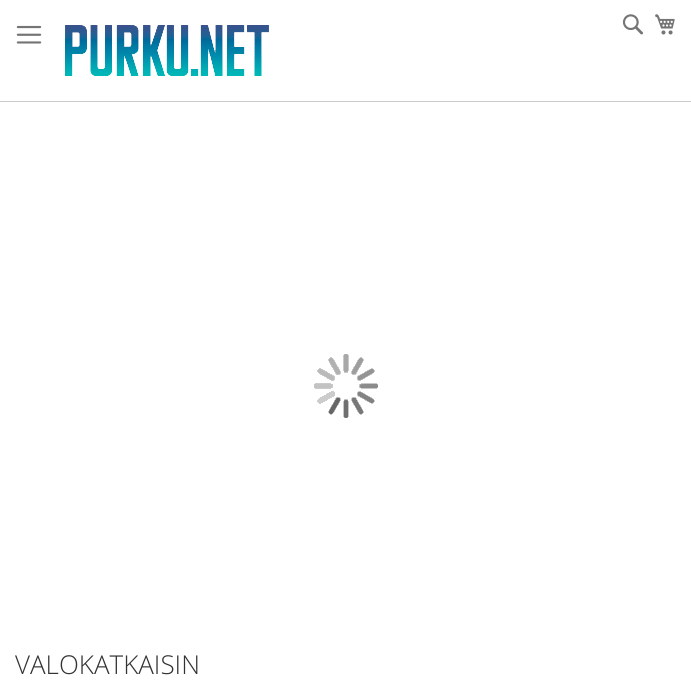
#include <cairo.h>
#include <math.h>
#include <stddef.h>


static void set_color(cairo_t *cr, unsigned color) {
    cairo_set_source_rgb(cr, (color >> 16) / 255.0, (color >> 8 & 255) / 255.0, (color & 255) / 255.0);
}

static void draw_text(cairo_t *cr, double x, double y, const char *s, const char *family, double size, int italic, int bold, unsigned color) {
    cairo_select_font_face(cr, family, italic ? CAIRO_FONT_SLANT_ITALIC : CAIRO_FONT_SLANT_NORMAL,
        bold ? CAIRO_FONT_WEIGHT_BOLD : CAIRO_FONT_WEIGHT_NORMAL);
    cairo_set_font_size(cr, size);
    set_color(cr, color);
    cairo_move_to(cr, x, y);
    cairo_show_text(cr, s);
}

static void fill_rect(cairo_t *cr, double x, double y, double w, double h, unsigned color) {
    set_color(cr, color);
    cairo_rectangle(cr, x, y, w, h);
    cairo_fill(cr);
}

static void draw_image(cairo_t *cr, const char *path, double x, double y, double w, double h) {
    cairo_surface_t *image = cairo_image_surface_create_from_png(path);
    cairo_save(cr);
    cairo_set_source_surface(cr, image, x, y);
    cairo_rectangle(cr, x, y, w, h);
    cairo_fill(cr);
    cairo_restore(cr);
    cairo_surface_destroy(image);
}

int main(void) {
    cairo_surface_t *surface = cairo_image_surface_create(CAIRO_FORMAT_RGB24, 691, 688);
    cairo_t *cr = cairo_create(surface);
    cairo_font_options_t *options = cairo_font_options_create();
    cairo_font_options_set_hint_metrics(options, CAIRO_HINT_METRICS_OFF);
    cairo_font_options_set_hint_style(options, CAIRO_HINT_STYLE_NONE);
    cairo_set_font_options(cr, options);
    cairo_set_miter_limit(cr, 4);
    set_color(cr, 0xFFFFFF);
    cairo_paint(cr);
    fill_rect(cr, 0, 101, 691, 1, 0xCCCCCC);
    draw_image(cr, "assets/img1.png", 16, 25, 26, 19);
    draw_image(cr, "assets/img2.png", 65, 25, 204, 51);
    draw_image(cr, "assets/img3.png", 622, 14, 21, 21);
    draw_image(cr, "assets/img4.png", 655, 14, 20, 21);
    draw_image(cr, "assets/img5.png", 314, 354, 64, 64);
    draw_text(cr, 15, 674, "VALOKATKAISIN", "Open Sans Light", 26, 0, 0, 0x333333);
    cairo_surface_write_to_png(surface, "output.png");
    cairo_font_options_destroy(options);
    cairo_destroy(cr);
    cairo_surface_destroy(surface);
    return 0;
}
